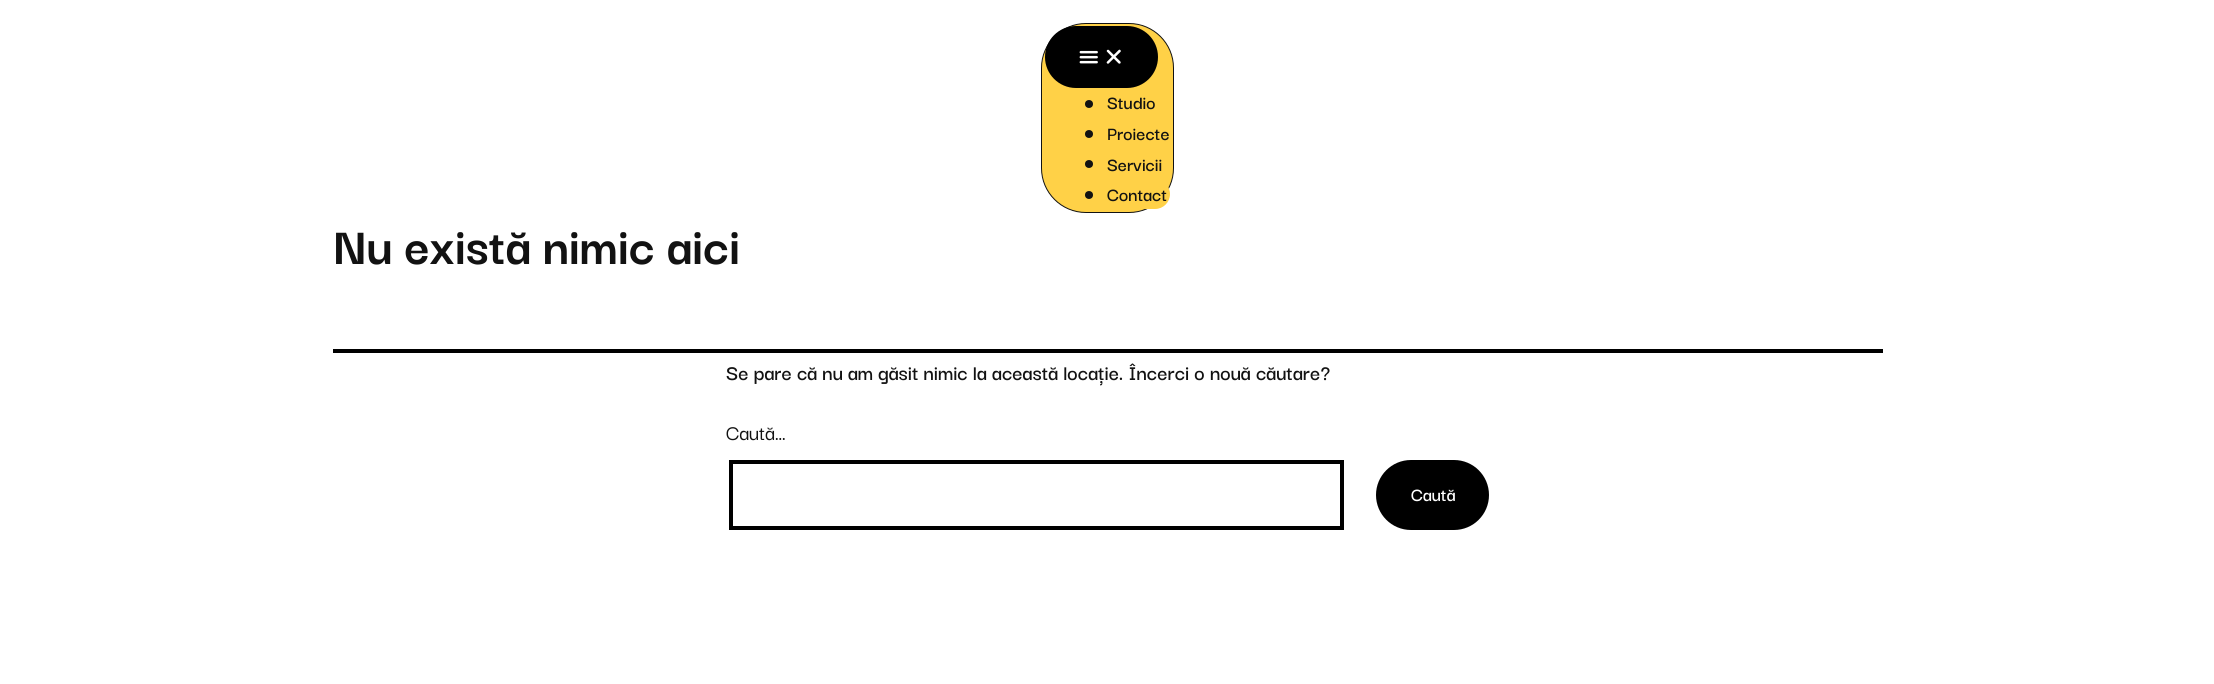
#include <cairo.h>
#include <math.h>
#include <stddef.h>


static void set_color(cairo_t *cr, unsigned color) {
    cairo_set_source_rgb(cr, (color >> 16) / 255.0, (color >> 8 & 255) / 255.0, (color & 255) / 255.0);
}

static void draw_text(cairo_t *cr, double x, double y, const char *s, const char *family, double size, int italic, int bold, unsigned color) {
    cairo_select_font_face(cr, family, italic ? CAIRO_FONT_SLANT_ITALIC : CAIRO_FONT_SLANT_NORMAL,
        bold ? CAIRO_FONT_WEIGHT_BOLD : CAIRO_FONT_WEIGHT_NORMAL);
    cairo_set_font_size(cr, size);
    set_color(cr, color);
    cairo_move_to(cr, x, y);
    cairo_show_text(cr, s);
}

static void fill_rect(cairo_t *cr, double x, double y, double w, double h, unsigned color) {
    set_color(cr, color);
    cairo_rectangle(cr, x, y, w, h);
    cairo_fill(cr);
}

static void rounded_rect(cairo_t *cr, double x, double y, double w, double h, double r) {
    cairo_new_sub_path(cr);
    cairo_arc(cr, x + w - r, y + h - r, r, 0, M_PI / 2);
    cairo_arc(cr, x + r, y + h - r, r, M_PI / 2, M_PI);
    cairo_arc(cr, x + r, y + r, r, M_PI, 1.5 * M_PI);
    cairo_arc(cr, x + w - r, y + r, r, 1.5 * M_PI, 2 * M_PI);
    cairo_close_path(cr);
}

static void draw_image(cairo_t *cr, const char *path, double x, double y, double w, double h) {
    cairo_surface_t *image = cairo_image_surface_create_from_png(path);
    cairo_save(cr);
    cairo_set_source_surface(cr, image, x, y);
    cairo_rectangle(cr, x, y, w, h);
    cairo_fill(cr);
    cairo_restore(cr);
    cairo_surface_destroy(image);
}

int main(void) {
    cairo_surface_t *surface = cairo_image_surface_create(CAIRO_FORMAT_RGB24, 2214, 684);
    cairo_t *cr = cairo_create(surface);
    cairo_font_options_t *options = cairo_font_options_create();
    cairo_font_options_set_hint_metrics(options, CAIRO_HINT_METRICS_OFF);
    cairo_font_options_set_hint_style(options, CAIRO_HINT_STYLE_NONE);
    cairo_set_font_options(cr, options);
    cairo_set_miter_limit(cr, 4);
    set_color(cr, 0xFFFFFF);
    cairo_paint(cr);
    set_color(cr, 0xFFD147);
    rounded_rect(cr, 1041.5, 23.5, 132, 189, 44.5);
    cairo_fill_preserve(cr);
    set_color(cr, 0x121212);
    cairo_set_line_width(cr, 1);
    cairo_stroke(cr);
    set_color(cr, 0x000000);
    rounded_rect(cr, 1045, 26, 113, 62, 31);
    cairo_fill(cr);
    draw_image(cr, "assets/img1.png", 1079, 50, 19, 14);
    draw_image(cr, "assets/img2.png", 1106, 49, 15, 15);
    set_color(cr, 0x121212);
    cairo_arc(cr, 1089, 104, 4, 0, 2 * M_PI);
    cairo_fill(cr);
    draw_text(cr, 1107, 109, "Studio", "Darker Grotesque SemiBold", 20, 0, 0, 0x121212);
    cairo_new_path(cr);
    cairo_arc(cr, 1089, 134, 4, 0, 2 * M_PI);
    cairo_fill(cr);
    draw_text(cr, 1107, 140, "Proiecte", "Darker Grotesque SemiBold", 20, 0, 0, 0x121212);
    cairo_new_path(cr);
    cairo_arc(cr, 1089, 164, 4, 0, 2 * M_PI);
    cairo_fill(cr);
    draw_text(cr, 1107, 171, "Servicii", "Darker Grotesque SemiBold", 20, 0, 0, 0x121212);
    cairo_new_path(cr);
    cairo_arc(cr, 1089, 195, 4, 0, 2 * M_PI);
    cairo_fill(cr);
    set_color(cr, 0xFFD147);
    rounded_rect(cr, 1108, 179, 62, 30, 15);
    cairo_fill(cr);
    draw_text(cr, 1107, 201, "Contact", "Darker Grotesque SemiBold", 20, 0, 0, 0x121212);
    fill_rect(cr, 333, 349, 1550, 4, 0x000000);
    draw_text(cr, 333, 264, "Nu există nimic aici", "Darker Grotesque", 55.5, 0, 1, 0x121212);
    draw_text(cr, 726, 380, "Se pare că nu am găsit nimic la această locație. Încerci o nouă căutare?", "Darker Grotesque SemiBold", 22.5, 0, 0, 0x121212);
    draw_text(cr, 726, 440, "Caută…", "Darker Grotesque Medium", 22.5, 0, 0, 0x121212);
    cairo_rectangle(cr, 731, 462, 611, 66);
    set_color(cr, 0x000000);
    cairo_set_line_width(cr, 4);
    cairo_stroke(cr);
    rounded_rect(cr, 1376, 460, 113, 70, 35);
    cairo_fill(cr);
    draw_text(cr, 1411, 501, "Caută", "Darker Grotesque SemiBold", 20, 0, 0, 0xFFFFFF);
    cairo_surface_write_to_png(surface, "output.png");
    cairo_font_options_destroy(options);
    cairo_destroy(cr);
    cairo_surface_destroy(surface);
    return 0;
}
